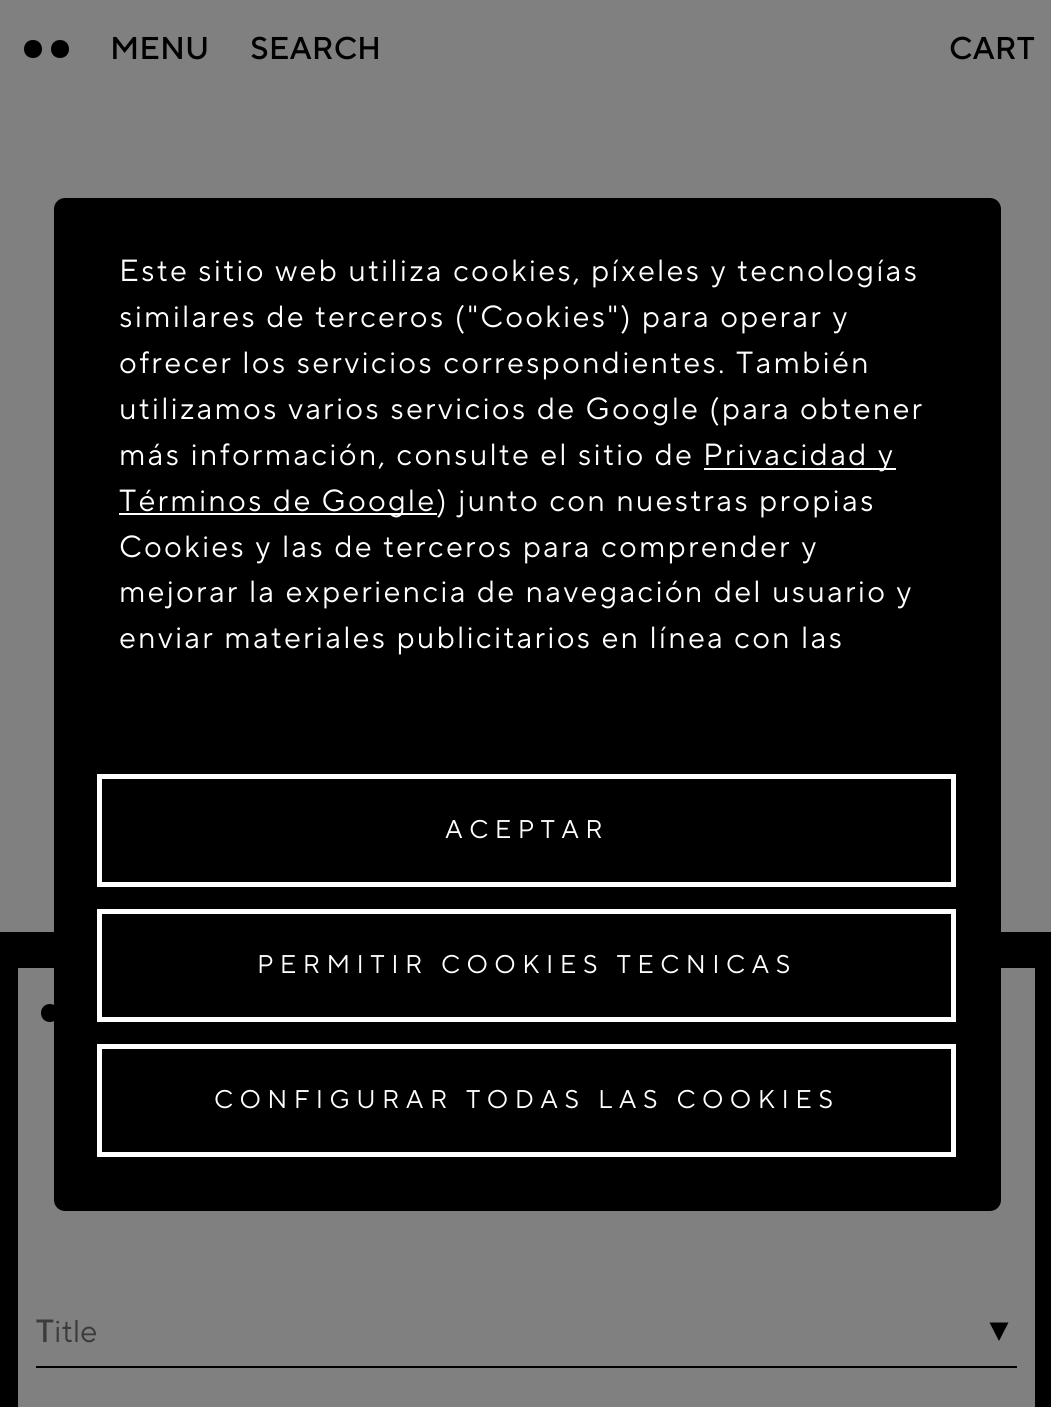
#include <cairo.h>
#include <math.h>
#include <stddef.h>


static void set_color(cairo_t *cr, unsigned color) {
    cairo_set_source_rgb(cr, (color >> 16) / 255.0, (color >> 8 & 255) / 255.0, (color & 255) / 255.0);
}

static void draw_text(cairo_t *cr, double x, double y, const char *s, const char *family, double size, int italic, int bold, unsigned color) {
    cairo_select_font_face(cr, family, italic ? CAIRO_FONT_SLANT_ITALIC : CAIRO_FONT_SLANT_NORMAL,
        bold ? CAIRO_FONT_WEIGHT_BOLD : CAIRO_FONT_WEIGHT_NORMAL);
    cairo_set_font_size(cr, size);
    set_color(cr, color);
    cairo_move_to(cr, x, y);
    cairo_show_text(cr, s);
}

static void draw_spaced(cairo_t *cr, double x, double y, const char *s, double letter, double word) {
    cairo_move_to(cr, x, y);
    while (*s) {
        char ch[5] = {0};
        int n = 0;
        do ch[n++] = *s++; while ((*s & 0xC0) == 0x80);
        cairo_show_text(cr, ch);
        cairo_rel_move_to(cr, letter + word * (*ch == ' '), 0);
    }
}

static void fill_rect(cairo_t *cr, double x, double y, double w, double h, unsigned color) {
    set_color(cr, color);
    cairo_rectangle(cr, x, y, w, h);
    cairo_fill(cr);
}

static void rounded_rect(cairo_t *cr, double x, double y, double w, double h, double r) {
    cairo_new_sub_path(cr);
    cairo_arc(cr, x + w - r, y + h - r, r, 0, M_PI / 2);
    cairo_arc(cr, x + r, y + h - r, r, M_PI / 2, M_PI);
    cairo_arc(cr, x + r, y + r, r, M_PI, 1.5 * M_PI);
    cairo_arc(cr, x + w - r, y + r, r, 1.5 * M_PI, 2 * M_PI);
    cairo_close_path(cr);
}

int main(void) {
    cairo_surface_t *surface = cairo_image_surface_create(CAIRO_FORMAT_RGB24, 1051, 1407);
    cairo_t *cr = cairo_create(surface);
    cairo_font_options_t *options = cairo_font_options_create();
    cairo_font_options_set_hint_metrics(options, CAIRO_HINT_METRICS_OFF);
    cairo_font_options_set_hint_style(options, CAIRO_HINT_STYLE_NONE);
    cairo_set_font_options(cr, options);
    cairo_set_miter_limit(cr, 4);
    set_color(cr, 0x808080);
    cairo_paint(cr);
    set_color(cr, 0x000000);
    cairo_new_path(cr);
    cairo_move_to(cr, 33, 40);
    cairo_curve_to(cr, 45, 40, 45, 58, 33, 58);
    cairo_curve_to(cr, 21, 58, 21, 40, 33, 40);
    cairo_close_path(cr);
    cairo_move_to(cr, 60, 40);
    cairo_curve_to(cr, 72, 40, 72, 58, 60, 58);
    cairo_curve_to(cr, 48, 58, 48, 40, 60, 40);
    cairo_close_path(cr);
    cairo_fill(cr);
    draw_text(cr, 110, 59, "MENU", "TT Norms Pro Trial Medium", 31.5, 0, 0, 0x000000);
    draw_text(cr, 250, 59, "SEARCH", "TT Norms Pro Trial Medium", 31.5, 0, 0, 0x000000);
    draw_text(cr, 949, 59, "CART", "TT Norms Pro Trial Medium", 31.5, 0, 0, 0x000000);
    fill_rect(cr, 18, 932, 1017, 36, 0x000000);
    fill_rect(cr, 1035, 932, 16, 475, 0x000000);
    fill_rect(cr, 0, 932, 18, 475, 0x000000);
    cairo_new_path(cr);
    cairo_move_to(cr, 50, 1004);
    cairo_curve_to(cr, 61, 1004, 61, 1022, 50, 1022);
    cairo_curve_to(cr, 38, 1022, 38, 1004, 50, 1004);
    cairo_close_path(cr);
    cairo_move_to(cr, 76, 1004);
    cairo_curve_to(cr, 88, 1004, 88, 1022, 76, 1022);
    cairo_curve_to(cr, 65, 1022, 65, 1004, 76, 1004);
    cairo_close_path(cr);
    cairo_fill(cr);
    fill_rect(cr, 36, 1366, 981, 2, 0x000000);
    draw_text(cr, 36, 1342, "T", "Noto Sans Medium", 31.5, 0, 0, 0x3B3B3B);
    draw_text(cr, 54, 1342, "itle", "TT Norms Pro Trial", 31.5, 0, 0, 0x3B3B3B);
    set_color(cr, 0x000000);
    cairo_new_path(cr);
    cairo_move_to(cr, 999, 1341);
    cairo_line_to(cr, 989.5, 1322.5);
    cairo_line_to(cr, 1008.5, 1322.5);
    cairo_close_path(cr);
    cairo_fill(cr);
    rounded_rect(cr, 54, 198, 947, 1013, 11);
    cairo_fill(cr);
    cairo_set_font_size(cr, 30.6);
    set_color(cr, 0xFFFFFF);
    draw_spaced(cr, 119, 281, "Este sitio web utiliza cookies, píxeles y tecnologías", 2.2, 0);
    draw_spaced(cr, 119, 327, "similares de terceros (\"Cookies\") para operar y", 2.2, 0);
    draw_spaced(cr, 119, 373, "ofrecer los servicios correspondientes. También", 2.2, 0);
    draw_spaced(cr, 119, 419, "utilizamos varios servicios de Google (para obtener", 2.2, 0);
    draw_spaced(cr, 119, 465, "más información, consulte el sitio de", 2.2, 0);
    fill_rect(cr, 704, 468, 192, 2, 0xFFFFFF);
    draw_spaced(cr, 703, 465, "Privacidad y", 2.2, 0);
    fill_rect(cr, 119, 513, 318, 2, 0xFFFFFF);
    draw_spaced(cr, 119, 511, "Términos de Google) junto con nuestras propias", 2.2, 0);
    draw_spaced(cr, 119, 557, "Cookies y las de terceros para comprender y", 2.2, 0);
    draw_spaced(cr, 119, 602, "mejorar la experiencia de navegación del usuario y", 2.2, 0);
    draw_spaced(cr, 119, 648, "enviar materiales publicitarios en línea con las", 2.2, 0);
    cairo_rectangle(cr, 99.5, 776.5, 854, 108);
    cairo_set_line_width(cr, 5);
    cairo_stroke(cr);
    cairo_set_font_size(cr, 25.6);
    draw_spaced(cr, 445, 838, "ACEPTAR", 6.4, 0);
    cairo_rectangle(cr, 99.5, 911.5, 854, 108);
    cairo_stroke(cr);
    draw_spaced(cr, 257, 973, "PERMITIR COOKIES TECNICAS", 6.4, 0);
    cairo_rectangle(cr, 99.5, 1046.5, 854, 108);
    cairo_stroke(cr);
    draw_spaced(cr, 214, 1108, "CONFIGURAR TODAS LAS COOKIES", 6.4, 0);
    cairo_surface_write_to_png(surface, "output.png");
    cairo_font_options_destroy(options);
    cairo_destroy(cr);
    cairo_surface_destroy(surface);
    return 0;
}
